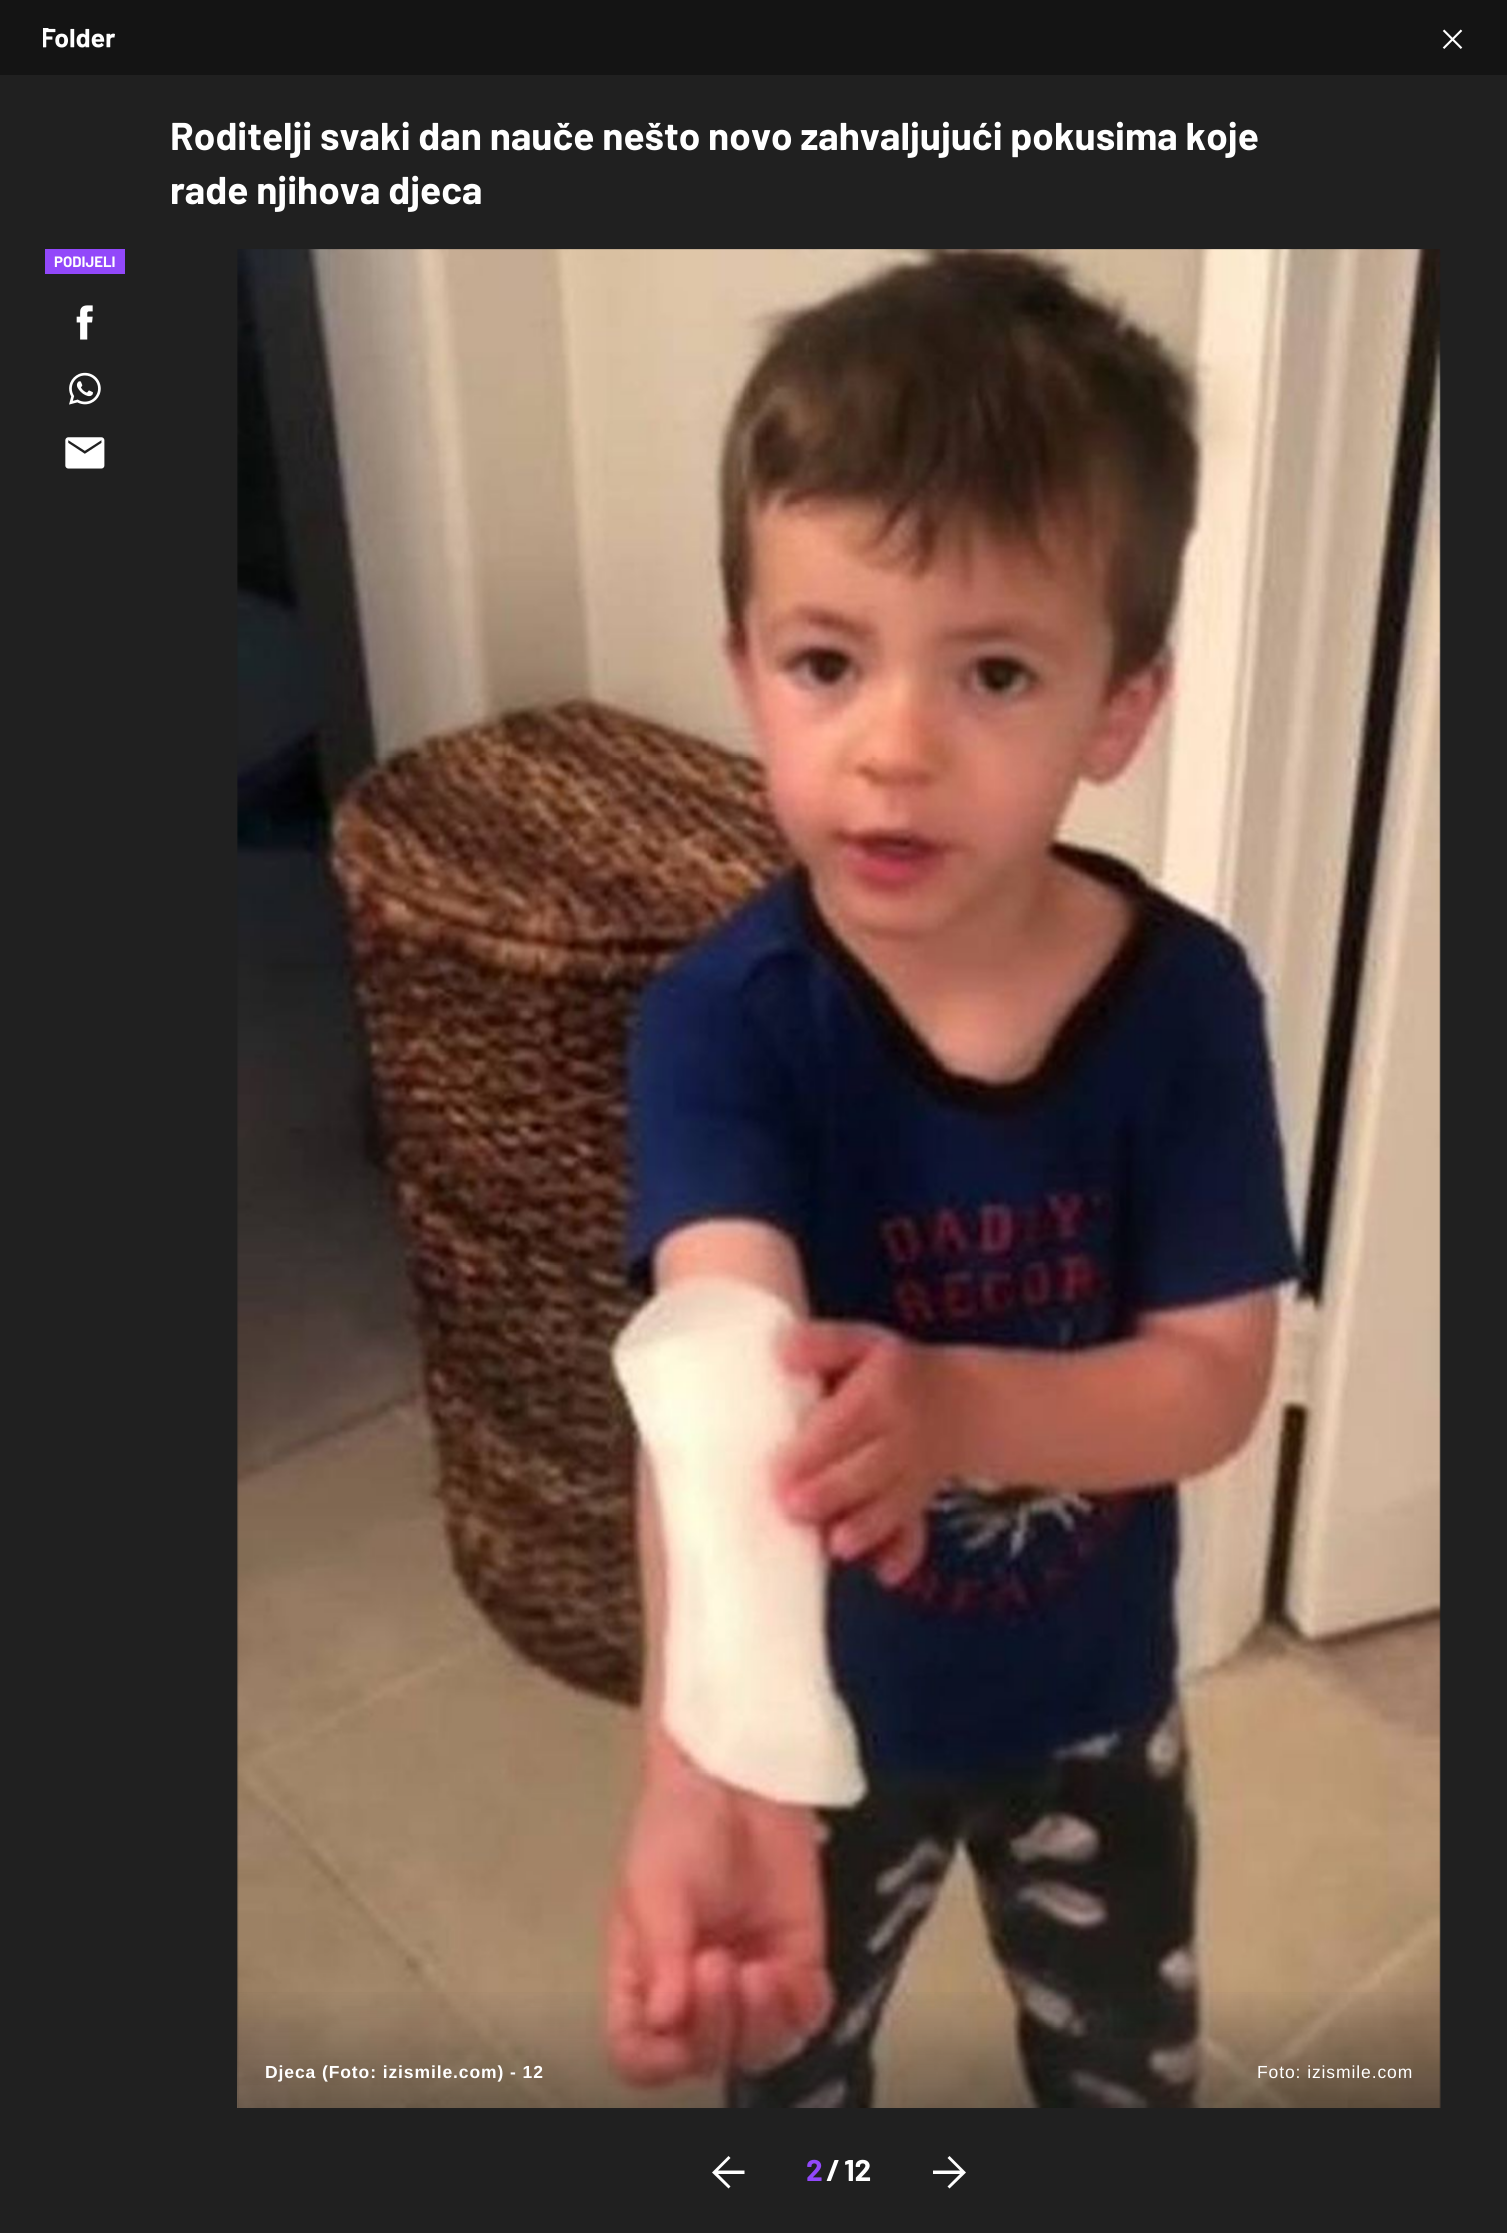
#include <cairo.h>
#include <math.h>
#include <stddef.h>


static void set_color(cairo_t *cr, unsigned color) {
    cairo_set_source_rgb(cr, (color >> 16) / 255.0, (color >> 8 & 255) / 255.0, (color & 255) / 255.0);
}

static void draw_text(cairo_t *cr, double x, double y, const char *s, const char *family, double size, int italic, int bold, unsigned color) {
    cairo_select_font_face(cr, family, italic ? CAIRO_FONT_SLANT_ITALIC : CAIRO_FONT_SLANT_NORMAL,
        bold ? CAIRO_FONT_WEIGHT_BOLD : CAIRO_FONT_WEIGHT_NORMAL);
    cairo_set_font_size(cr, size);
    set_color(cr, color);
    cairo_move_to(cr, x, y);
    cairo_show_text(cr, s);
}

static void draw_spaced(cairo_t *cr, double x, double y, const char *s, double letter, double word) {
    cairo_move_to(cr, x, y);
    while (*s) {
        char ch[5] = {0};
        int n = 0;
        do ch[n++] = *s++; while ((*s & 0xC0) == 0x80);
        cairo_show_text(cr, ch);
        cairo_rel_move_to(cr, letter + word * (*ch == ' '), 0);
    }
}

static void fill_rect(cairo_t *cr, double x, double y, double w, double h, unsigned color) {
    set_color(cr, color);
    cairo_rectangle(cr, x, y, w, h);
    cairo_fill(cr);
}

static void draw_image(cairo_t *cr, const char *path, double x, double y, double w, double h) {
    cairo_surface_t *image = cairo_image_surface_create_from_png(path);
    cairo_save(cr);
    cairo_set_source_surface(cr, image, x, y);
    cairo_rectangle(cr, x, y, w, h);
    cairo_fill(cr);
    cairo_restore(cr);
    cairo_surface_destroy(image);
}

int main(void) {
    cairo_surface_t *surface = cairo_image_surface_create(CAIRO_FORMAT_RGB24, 1507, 2233);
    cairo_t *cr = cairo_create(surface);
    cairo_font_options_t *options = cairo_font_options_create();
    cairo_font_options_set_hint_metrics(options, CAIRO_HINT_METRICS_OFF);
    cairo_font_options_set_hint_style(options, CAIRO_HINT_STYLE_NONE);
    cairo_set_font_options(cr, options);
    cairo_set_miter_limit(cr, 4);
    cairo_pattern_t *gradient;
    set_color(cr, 0x202020);
    cairo_paint(cr);
    fill_rect(cr, 0, 0, 1507, 75, 0x141414);
    draw_image(cr, "assets/img1.png", 43, 28, 72, 20);
    draw_image(cr, "assets/img2.png", 1442, 29, 21, 20);
    draw_text(cr, 170, 150, "Roditelji svaki dan nauče nešto novo zahvaljujući pokusima koje", "Barlow", 38.75, 0, 1, 0xFFFFFF);
    draw_text(cr, 170, 204, "rade njihova djeca", "Barlow", 38.75, 0, 1, 0xFFFFFF);
    fill_rect(cr, 45, 249, 80, 25, 0x9248FA);
    draw_text(cr, 54, 267, "PODIJELI", "Barlow", 15, 0, 1, 0xFFFFFF);
    draw_image(cr, "assets/img3.png", 76, 305, 17, 35);
    draw_image(cr, "assets/img4.png", 69, 372, 32, 33);
    draw_image(cr, "assets/img5.png", 65, 437, 40, 32);
    draw_image(cr, "assets/img6.png", 237, 249, 1204, 1859);
    gradient = cairo_pattern_create_linear(839, 2108, 839, 1985);
    cairo_pattern_add_color_stop_rgba(gradient, 0, 0.078, 0.078, 0.078, 0.4);
    cairo_pattern_add_color_stop_rgba(gradient, 1, 0.078, 0.078, 0.078, 0);
    cairo_set_source(cr, gradient);
    cairo_pattern_destroy(gradient);
    cairo_rectangle(cr, 238, 1992, 1202, 116);
    cairo_fill(cr);
    cairo_select_font_face(cr, "Liberation Sans", CAIRO_FONT_SLANT_NORMAL, CAIRO_FONT_WEIGHT_BOLD);
    cairo_set_font_size(cr, 17.5);
    set_color(cr, 0xFFFFFF);
    draw_spaced(cr, 265, 2078, "Djeca (Foto: izismile.com) - 12", 0.9, 0);
    cairo_select_font_face(cr, "Liberation Sans", CAIRO_FONT_SLANT_NORMAL, CAIRO_FONT_WEIGHT_NORMAL);
    draw_spaced(cr, 1257, 2078, "Foto: izismile.com", 0.9, 0);
    cairo_new_path(cr);
    cairo_move_to(cr, 728.5, 2188.5);
    cairo_line_to(cr, 730.5, 2186.5);
    cairo_line_to(cr, 718, 2174);
    cairo_line_to(cr, 744.5, 2174);
    cairo_line_to(cr, 744.5, 2170.5);
    cairo_line_to(cr, 718, 2170.5);
    cairo_line_to(cr, 730.5, 2158);
    cairo_line_to(cr, 728.5, 2156);
    cairo_line_to(cr, 712, 2172.5);
    cairo_close_path(cr);
    cairo_fill(cr);
    draw_text(cr, 806, 2181, "2", "Barlow", 30, 0, 1, 0x9248FA);
    draw_text(cr, 826, 2181, "/", "Barlow", 30, 0, 1, 0xFFFFFF);
    draw_text(cr, 844, 2181, "12", "Barlow", 30, 0, 1, 0xFFFFFF);
    cairo_new_path(cr);
    cairo_move_to(cr, 949.5, 2188.5);
    cairo_line_to(cr, 947.5, 2186.5);
    cairo_line_to(cr, 960, 2174);
    cairo_line_to(cr, 933, 2174);
    cairo_line_to(cr, 933, 2170.5);
    cairo_line_to(cr, 960, 2170.5);
    cairo_line_to(cr, 947.5, 2158);
    cairo_line_to(cr, 949.5, 2156);
    cairo_line_to(cr, 966, 2172.5);
    cairo_close_path(cr);
    cairo_fill(cr);
    cairo_surface_write_to_png(surface, "output.png");
    cairo_font_options_destroy(options);
    cairo_destroy(cr);
    cairo_surface_destroy(surface);
    return 0;
}
